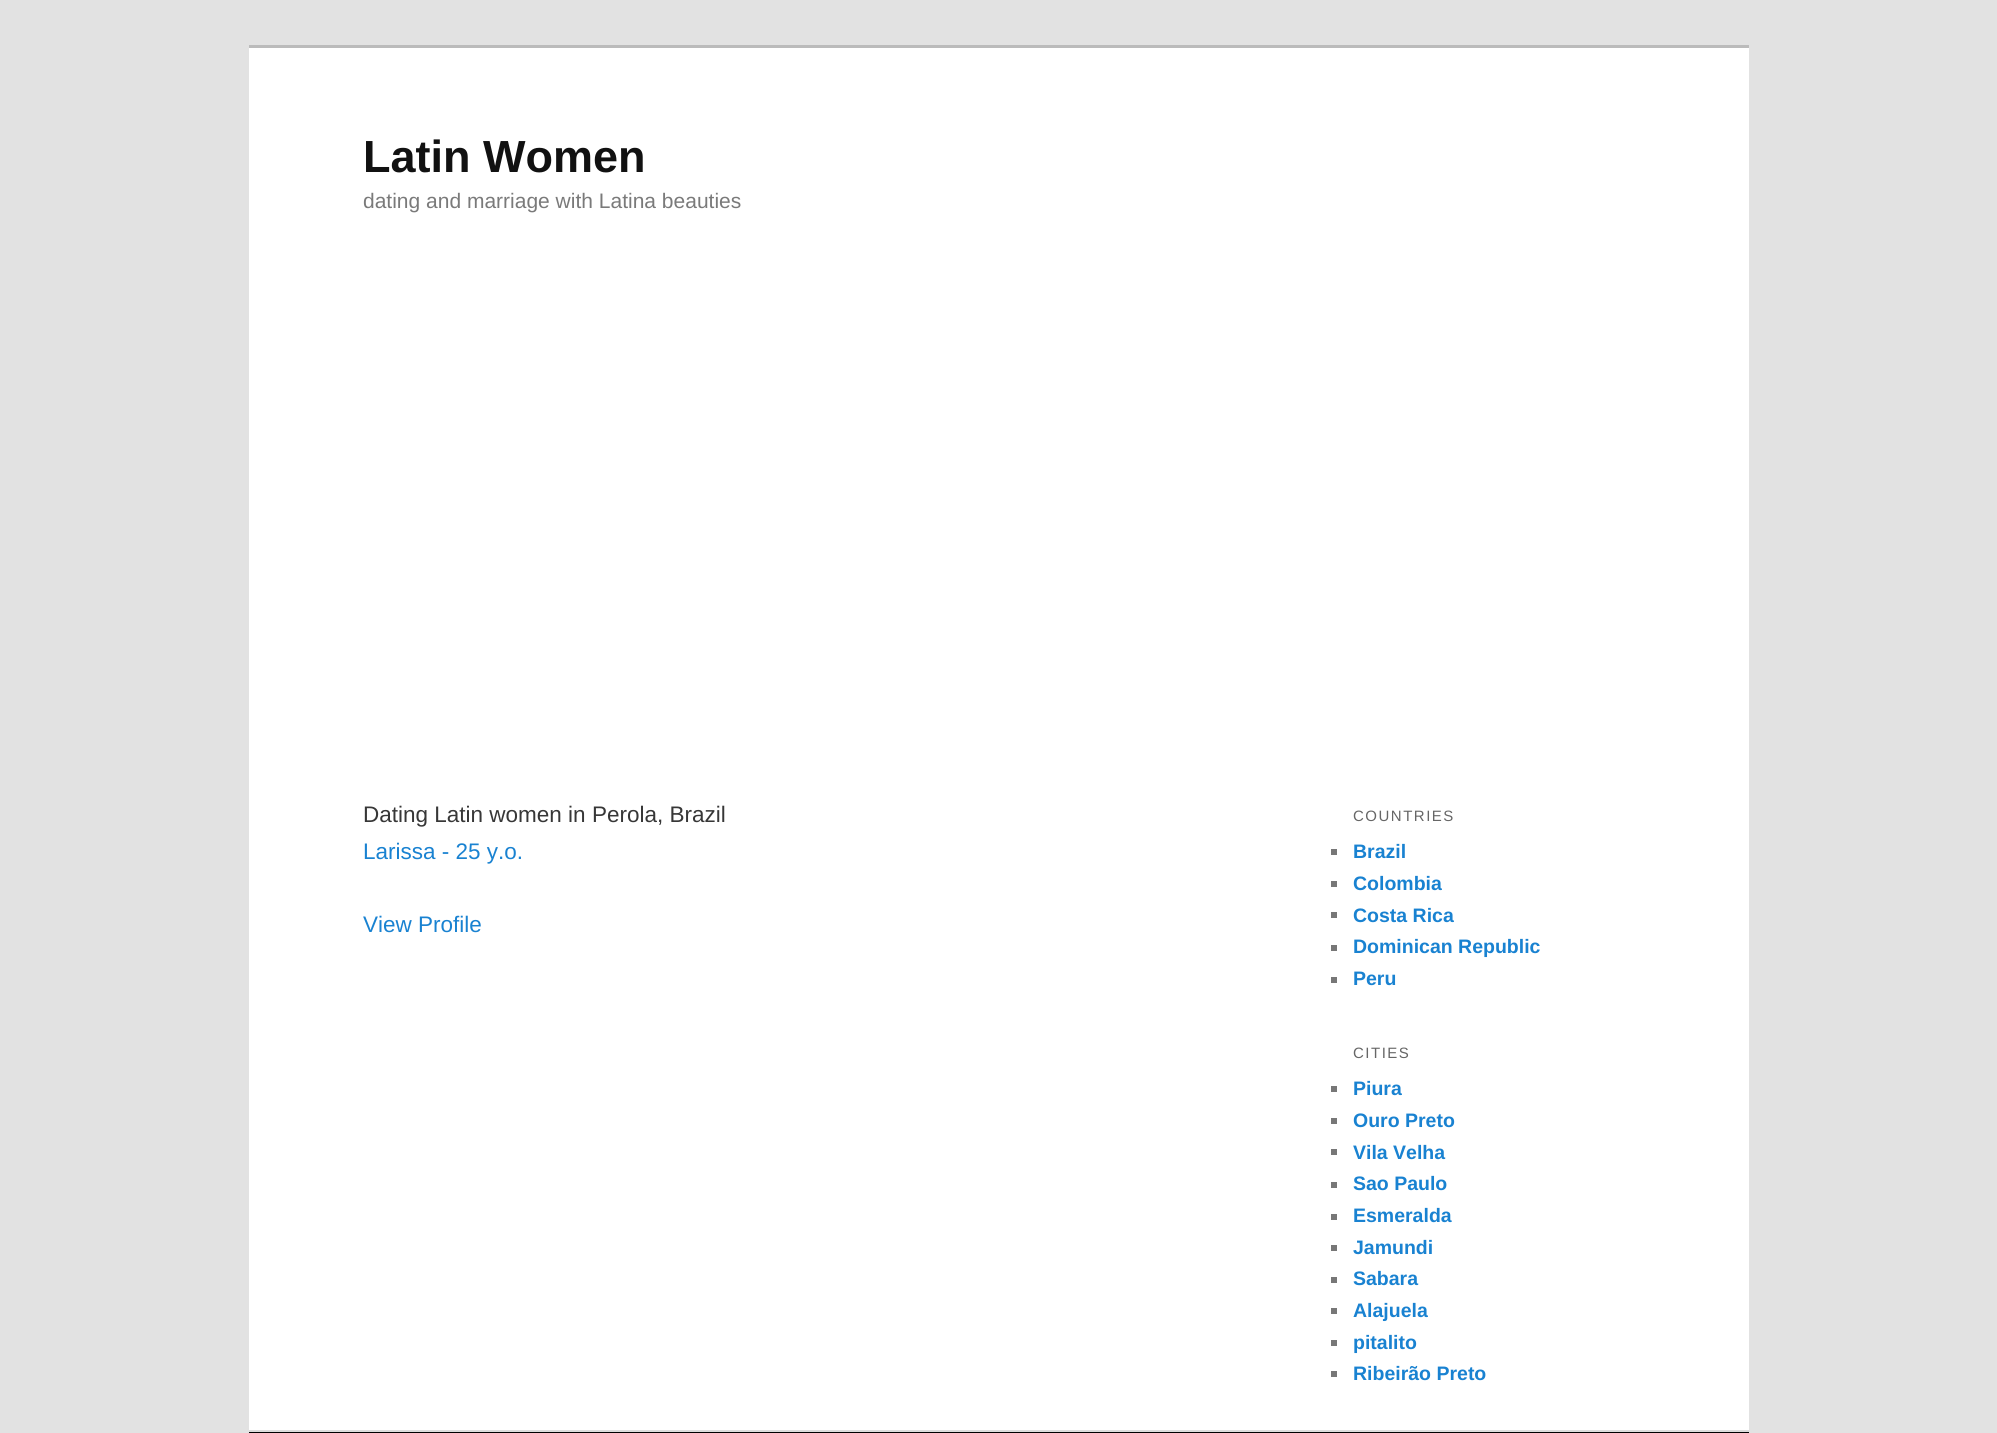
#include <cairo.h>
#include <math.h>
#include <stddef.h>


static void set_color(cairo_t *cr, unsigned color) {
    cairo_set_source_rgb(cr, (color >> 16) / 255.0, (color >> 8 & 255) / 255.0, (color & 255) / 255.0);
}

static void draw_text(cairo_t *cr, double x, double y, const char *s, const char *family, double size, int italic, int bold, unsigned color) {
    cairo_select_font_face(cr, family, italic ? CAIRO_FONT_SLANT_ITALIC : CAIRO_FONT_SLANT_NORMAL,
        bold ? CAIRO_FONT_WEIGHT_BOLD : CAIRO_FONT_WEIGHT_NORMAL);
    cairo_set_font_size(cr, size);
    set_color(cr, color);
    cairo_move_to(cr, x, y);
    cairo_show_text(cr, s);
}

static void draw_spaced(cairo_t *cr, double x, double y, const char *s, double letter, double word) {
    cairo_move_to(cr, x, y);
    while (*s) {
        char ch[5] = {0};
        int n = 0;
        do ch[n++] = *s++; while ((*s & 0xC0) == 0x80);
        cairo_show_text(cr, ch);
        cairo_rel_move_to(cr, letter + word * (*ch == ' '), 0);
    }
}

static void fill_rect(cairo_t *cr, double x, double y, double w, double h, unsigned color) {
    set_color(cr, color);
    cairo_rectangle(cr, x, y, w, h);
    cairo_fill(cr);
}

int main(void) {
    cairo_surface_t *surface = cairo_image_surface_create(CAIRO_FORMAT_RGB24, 1997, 1433);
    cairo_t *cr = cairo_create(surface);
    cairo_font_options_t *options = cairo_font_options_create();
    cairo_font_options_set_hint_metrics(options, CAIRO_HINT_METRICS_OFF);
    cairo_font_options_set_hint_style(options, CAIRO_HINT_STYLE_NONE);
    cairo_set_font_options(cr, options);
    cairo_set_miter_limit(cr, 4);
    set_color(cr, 0xE2E2E2);
    cairo_paint(cr);
    fill_rect(cr, 249, 48, 1500, 1382, 0xFFFFFF);
    fill_rect(cr, 249, 45, 1500, 3, 0xBBBBBB);
    draw_text(cr, 363, 172, "Latin Women", "Liberation Sans", 45, 0, 1, 0x111111);
    draw_text(cr, 363, 208, "dating and marriage with Latina beauties", "Liberation Sans", 21, 0, 0, 0x7A7A7A);
    draw_text(cr, 363, 822, "Dating Latin women in Perola, Brazil", "Liberation Sans", 22.5, 0, 0, 0x373737);
    draw_text(cr, 363, 859, "Larissa - 25 y.o.", "Liberation Sans", 22.5, 0, 0, 0x1982D1);
    draw_text(cr, 363, 932, "View Profile", "Liberation Sans", 22.5, 0, 0, 0x1982D1);
    cairo_set_font_size(cr, 15);
    set_color(cr, 0x666666);
    draw_spaced(cr, 1353, 821, "COUNTRIES", 1.5, 0);
    fill_rect(cr, 1331, 849, 6, 6, 0x777777);
    draw_text(cr, 1353, 858, "Brazil", "Liberation Sans", 19.5, 0, 1, 0x1982D1);
    fill_rect(cr, 1331, 881, 6, 6, 0x777777);
    draw_text(cr, 1353, 890, "Colombia", "Liberation Sans", 19.5, 0, 1, 0x1982D1);
    fill_rect(cr, 1331, 912, 6, 6, 0x777777);
    draw_text(cr, 1353, 922, "Costa Rica", "Liberation Sans", 19.5, 0, 1, 0x1982D1);
    fill_rect(cr, 1331, 945, 6, 6, 0x777777);
    draw_text(cr, 1353, 953, "Dominican Republic", "Liberation Sans", 19.5, 0, 1, 0x1982D1);
    fill_rect(cr, 1331, 977, 6, 6, 0x777777);
    draw_text(cr, 1353, 985, "Peru", "Liberation Sans", 19.5, 0, 1, 0x1982D1);
    cairo_select_font_face(cr, "Liberation Sans", CAIRO_FONT_SLANT_NORMAL, CAIRO_FONT_WEIGHT_NORMAL);
    cairo_set_font_size(cr, 15);
    set_color(cr, 0x666666);
    draw_spaced(cr, 1353, 1058, "CITIES", 1.5, 0);
    fill_rect(cr, 1331, 1086, 6, 6, 0x777777);
    draw_text(cr, 1353, 1095, "Piura", "Liberation Sans", 19.5, 0, 1, 0x1982D1);
    fill_rect(cr, 1331, 1118, 6, 6, 0x777777);
    draw_text(cr, 1353, 1127, "Ouro Preto", "Liberation Sans", 19.5, 0, 1, 0x1982D1);
    fill_rect(cr, 1331, 1149, 6, 6, 0x777777);
    draw_text(cr, 1353, 1159, "Vila Velha", "Liberation Sans", 19.5, 0, 1, 0x1982D1);
    fill_rect(cr, 1331, 1182, 6, 6, 0x777777);
    draw_text(cr, 1353, 1190, "Sao Paulo", "Liberation Sans", 19.5, 0, 1, 0x1982D1);
    fill_rect(cr, 1331, 1214, 6, 6, 0x777777);
    draw_text(cr, 1353, 1222, "Esmeralda", "Liberation Sans", 19.5, 0, 1, 0x1982D1);
    fill_rect(cr, 1331, 1245, 6, 6, 0x777777);
    draw_text(cr, 1353, 1254, "Jamundi", "Liberation Sans", 19.5, 0, 1, 0x1982D1);
    fill_rect(cr, 1331, 1277, 6, 6, 0x777777);
    draw_text(cr, 1353, 1285, "Sabara", "Liberation Sans", 19.5, 0, 1, 0x1982D1);
    fill_rect(cr, 1331, 1308, 6, 6, 0x777777);
    draw_text(cr, 1353, 1317, "Alajuela", "Liberation Sans", 19.5, 0, 1, 0x1982D1);
    fill_rect(cr, 1331, 1340, 6, 6, 0x777777);
    draw_text(cr, 1353, 1349, "pitalito", "Liberation Sans", 19.5, 0, 1, 0x1982D1);
    fill_rect(cr, 1331, 1371, 6, 6, 0x777777);
    draw_text(cr, 1353, 1380, "Ribeirão Preto", "Liberation Sans", 19.5, 0, 1, 0x1982D1);
    fill_rect(cr, 249, 1432, 1500, 1, 0x000000);
    fill_rect(cr, 249, 1430, 1500, 2, 0xDDDDDD);
    cairo_surface_write_to_png(surface, "output.png");
    cairo_font_options_destroy(options);
    cairo_destroy(cr);
    cairo_surface_destroy(surface);
    return 0;
}
